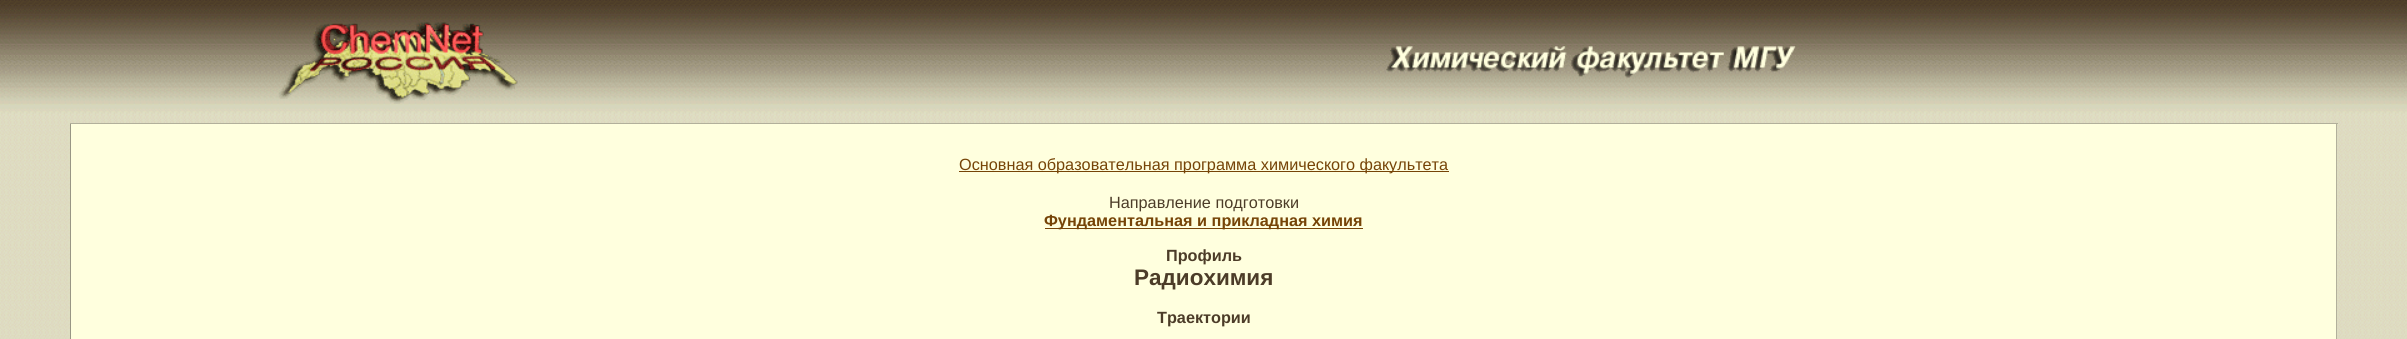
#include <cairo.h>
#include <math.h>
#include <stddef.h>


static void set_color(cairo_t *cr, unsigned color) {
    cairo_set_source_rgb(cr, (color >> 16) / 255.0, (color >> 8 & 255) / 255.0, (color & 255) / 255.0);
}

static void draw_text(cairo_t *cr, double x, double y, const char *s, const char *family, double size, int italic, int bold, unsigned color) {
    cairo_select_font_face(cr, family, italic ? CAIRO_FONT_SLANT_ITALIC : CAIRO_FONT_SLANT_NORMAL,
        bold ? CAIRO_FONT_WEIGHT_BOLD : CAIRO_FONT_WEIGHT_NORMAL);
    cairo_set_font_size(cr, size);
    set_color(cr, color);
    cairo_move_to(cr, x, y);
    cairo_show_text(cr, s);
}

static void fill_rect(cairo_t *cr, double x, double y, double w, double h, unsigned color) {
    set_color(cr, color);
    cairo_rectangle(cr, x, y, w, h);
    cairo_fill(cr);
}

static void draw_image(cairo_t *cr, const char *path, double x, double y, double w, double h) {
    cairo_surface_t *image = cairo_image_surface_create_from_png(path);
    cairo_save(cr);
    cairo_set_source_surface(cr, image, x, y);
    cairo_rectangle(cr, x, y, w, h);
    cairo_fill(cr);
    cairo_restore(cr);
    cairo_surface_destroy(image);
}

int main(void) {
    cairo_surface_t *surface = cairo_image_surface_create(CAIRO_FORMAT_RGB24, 2407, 339);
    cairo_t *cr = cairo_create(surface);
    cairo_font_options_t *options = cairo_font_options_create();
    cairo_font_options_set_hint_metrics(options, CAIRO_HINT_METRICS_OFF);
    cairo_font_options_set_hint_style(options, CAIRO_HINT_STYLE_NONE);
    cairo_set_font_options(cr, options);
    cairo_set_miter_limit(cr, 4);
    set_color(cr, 0xFFFFFF);
    cairo_paint(cr);
    draw_image(cr, "assets/img1.png", 0, 0, 2407, 339);
    draw_image(cr, "assets/img2.png", 278, 22, 240, 82);
    draw_image(cr, "assets/img3.png", 1386, 46, 410, 32);
    fill_rect(cr, 70, 123, 2268, 1, 0xB2B09B);
    fill_rect(cr, 70, 124, 1, 215, 0x989685);
    fill_rect(cr, 71, 124, 2265, 215, 0xFFFFDE);
    fill_rect(cr, 959, 171, 490, 1, 0x764407);
    draw_text(cr, 959, 170, "Основная образовательная программа химического факультета", "Liberation Sans", 16.25, 0, 0, 0x764407);
    draw_text(cr, 1109, 208, "Направление подготовки", "Liberation Sans", 16.25, 0, 0, 0x4C3C28);
    fill_rect(cr, 1045, 228, 318, 1, 0x764407);
    draw_text(cr, 1044, 226, "Фундаментальная и прикладная химия", "Liberation Sans", 16.25, 0, 1, 0x764407);
    draw_text(cr, 1166, 261, "Профиль", "Liberation Sans", 16.25, 0, 1, 0x4C3C28);
    draw_text(cr, 1134, 285, "Радиохимия", "Liberation Sans", 22.5, 0, 1, 0x4C3C28);
    draw_text(cr, 1157, 323, "Траектории", "Liberation Sans", 16.25, 0, 1, 0x4C3C28);
    fill_rect(cr, 2336, 124, 1, 215, 0xB2B09B);
    cairo_surface_write_to_png(surface, "output.png");
    cairo_font_options_destroy(options);
    cairo_destroy(cr);
    cairo_surface_destroy(surface);
    return 0;
}
